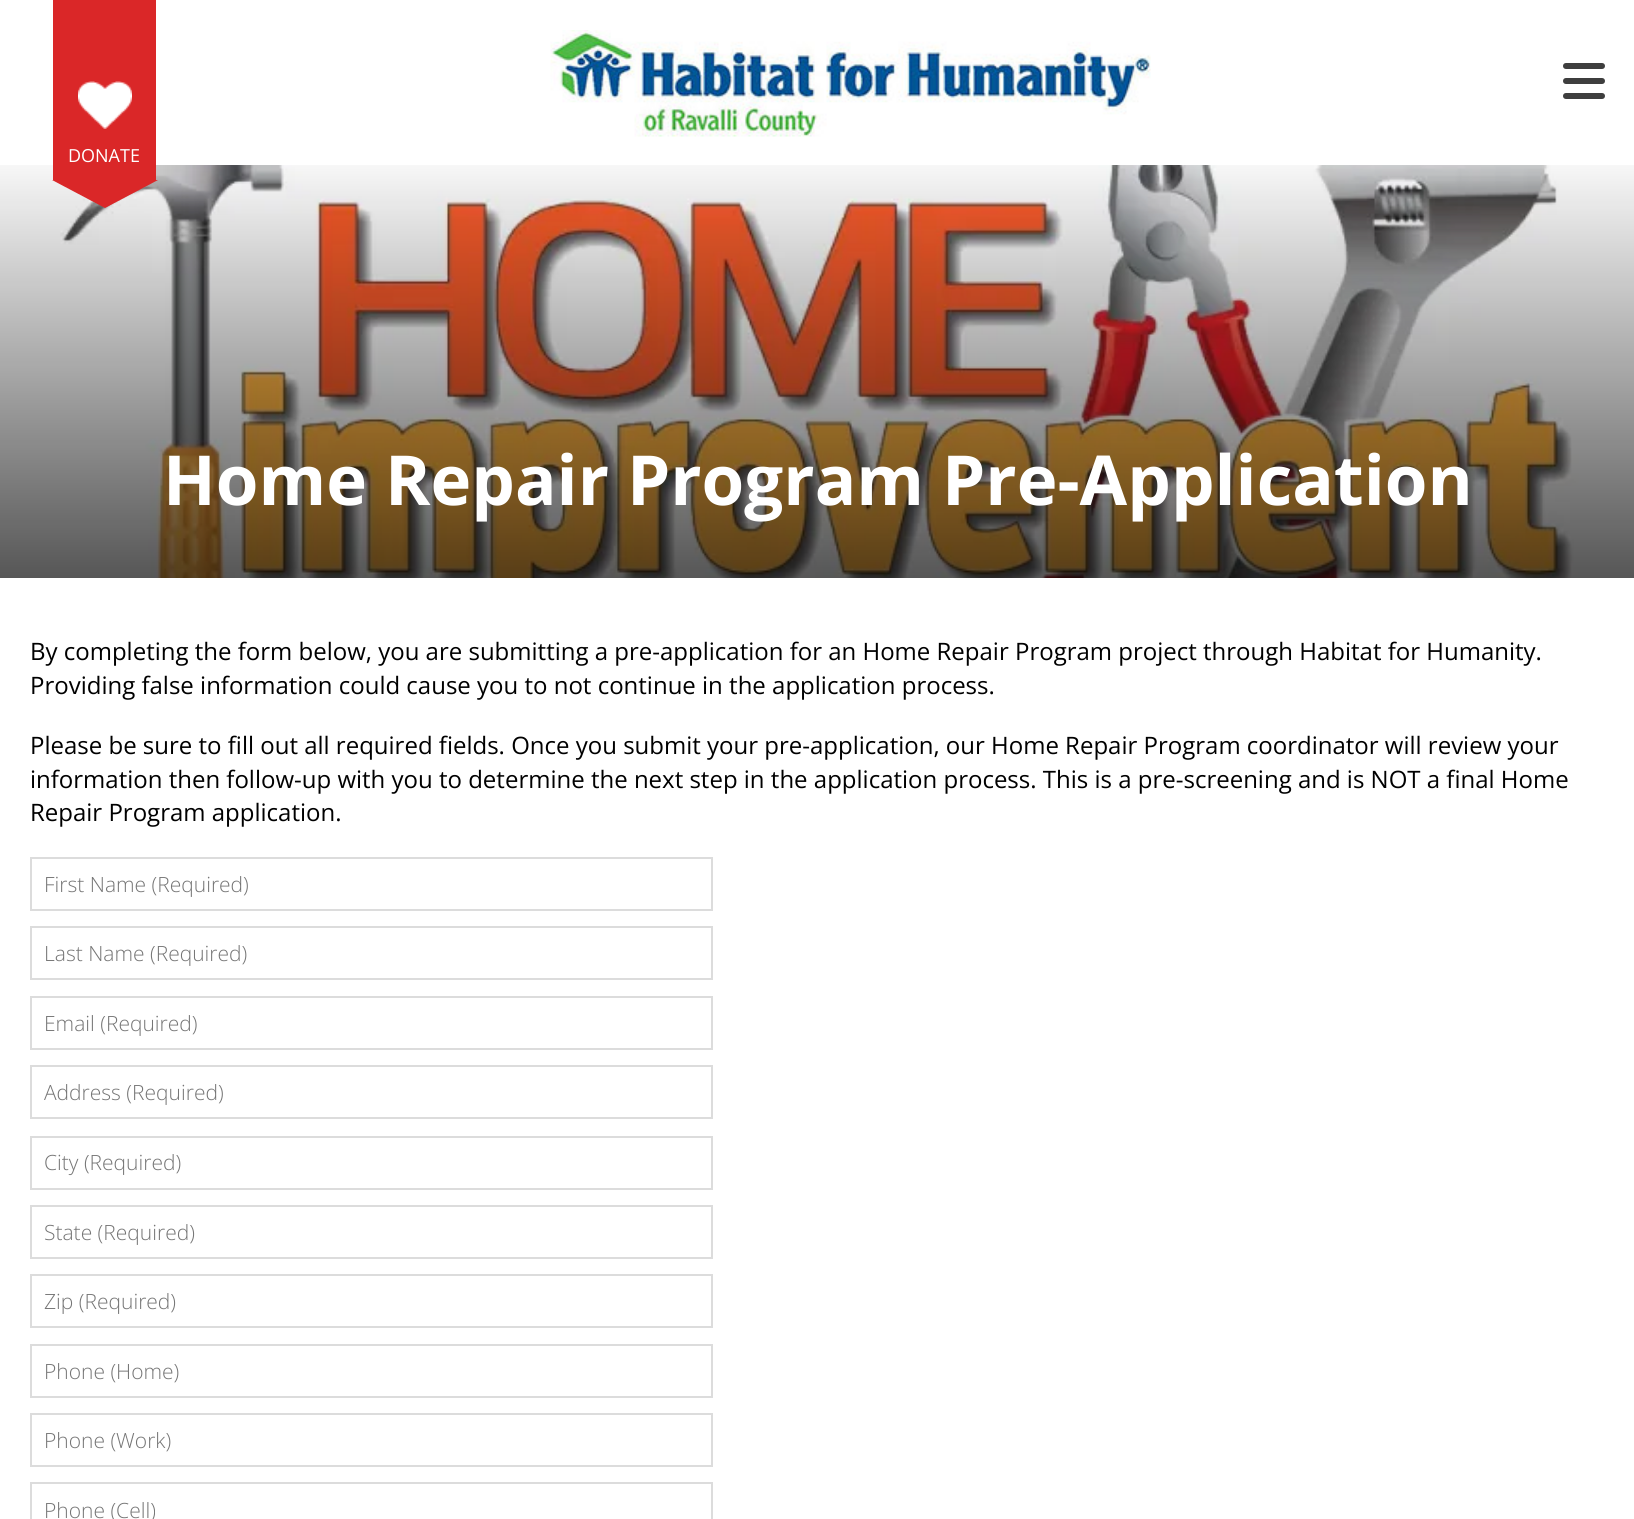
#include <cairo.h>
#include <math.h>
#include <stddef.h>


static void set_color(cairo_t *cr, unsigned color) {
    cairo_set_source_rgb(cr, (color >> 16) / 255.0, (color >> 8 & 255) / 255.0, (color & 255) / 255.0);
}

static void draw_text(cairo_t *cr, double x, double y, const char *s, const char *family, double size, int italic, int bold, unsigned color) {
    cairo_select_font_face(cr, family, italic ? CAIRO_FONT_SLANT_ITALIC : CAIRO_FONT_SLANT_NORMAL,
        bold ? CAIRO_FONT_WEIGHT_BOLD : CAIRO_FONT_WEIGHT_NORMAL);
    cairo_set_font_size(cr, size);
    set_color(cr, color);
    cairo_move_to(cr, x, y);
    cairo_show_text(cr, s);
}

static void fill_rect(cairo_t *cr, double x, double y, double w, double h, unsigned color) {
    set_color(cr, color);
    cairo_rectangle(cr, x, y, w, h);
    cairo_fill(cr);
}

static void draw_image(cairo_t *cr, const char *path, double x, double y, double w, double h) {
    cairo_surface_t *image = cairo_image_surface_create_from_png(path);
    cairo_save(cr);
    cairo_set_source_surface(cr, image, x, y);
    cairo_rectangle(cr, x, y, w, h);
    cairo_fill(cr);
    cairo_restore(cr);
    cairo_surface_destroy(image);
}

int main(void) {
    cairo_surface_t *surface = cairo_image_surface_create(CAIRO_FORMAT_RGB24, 1634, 1519);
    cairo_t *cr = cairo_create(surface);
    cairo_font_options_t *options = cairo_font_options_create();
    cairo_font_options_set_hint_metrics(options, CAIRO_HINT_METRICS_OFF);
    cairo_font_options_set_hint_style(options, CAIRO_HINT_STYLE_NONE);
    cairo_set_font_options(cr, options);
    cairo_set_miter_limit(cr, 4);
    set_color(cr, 0xFFFFFF);
    cairo_paint(cr);
    draw_image(cr, "assets/img1.png", 550, 30, 601, 107);
    draw_image(cr, "assets/img2.png", 1563, 63, 42, 36);
    draw_image(cr, "assets/img4.png", 0, 165, 1634, 413);
    fill_rect(cr, 53, 0, 103, 180, 0xDA2728);
    draw_image(cr, "assets/img3.png", 78, 81, 54, 48);
    draw_text(cr, 68, 162, "DONATE", "Open Sans", 18, 0, 0, 0xFFFFFF);
    set_color(cr, 0xDA2728);
    cairo_new_path(cr);
    cairo_move_to(cr, 52, 180);
    cairo_line_to(cr, 158, 180);
    cairo_line_to(cr, 105, 208);
    cairo_close_path(cr);
    cairo_fill(cr);
    draw_text(cr, 163, 505, "Home Repair Program Pre-Application", "Open Sans", 69, 0, 1, 0xFFFFFF);
    draw_text(cr, 30, 660, "By completing the form below, you are submitting a pre-application for an Home Repair Program project through Habitat for Humanity.", "Open Sans", 24, 0, 0, 0x000000);
    draw_text(cr, 30, 694, "Providing false information could cause you to not continue in the application process.", "Open Sans", 24, 0, 0, 0x000000);
    draw_text(cr, 30, 754, "Please be sure to fill out all required fields. Once you submit your pre-application, our Home Repair Program coordinator will review your", "Open Sans", 24, 0, 0, 0x000000);
    draw_text(cr, 30, 788, "information then follow-up with you to determine the next step in the application process. This is a pre-screening and is NOT a final Home", "Open Sans", 24, 0, 0, 0x000000);
    draw_text(cr, 30, 821, "Repair Program application.", "Open Sans", 24, 0, 0, 0x000000);
    cairo_rectangle(cr, 31, 858, 681, 52);
    set_color(cr, 0xDCDCDC);
    cairo_stroke(cr);
    draw_text(cr, 44, 892, "First Name (Required)", "Open Sans Light", 21, 0, 0, 0x757575);
    cairo_rectangle(cr, 31, 927, 681, 52);
    set_color(cr, 0xDCDCDC);
    cairo_stroke(cr);
    draw_text(cr, 44, 961, "Last Name (Required)", "Open Sans Light", 21, 0, 0, 0x757575);
    cairo_rectangle(cr, 31, 997, 681, 52);
    set_color(cr, 0xDCDCDC);
    cairo_stroke(cr);
    draw_text(cr, 44, 1031, "Email (Required)", "Open Sans Light", 21, 0, 0, 0x757575);
    cairo_rectangle(cr, 31, 1066, 681, 52);
    set_color(cr, 0xDCDCDC);
    cairo_stroke(cr);
    draw_text(cr, 44, 1100, "Address (Required)", "Open Sans Light", 21, 0, 0, 0x757575);
    cairo_rectangle(cr, 31, 1137, 681, 52);
    set_color(cr, 0xDCDCDC);
    cairo_stroke(cr);
    draw_text(cr, 44, 1170, "City (Required)", "Open Sans Light", 21, 0, 0, 0x757575);
    cairo_rectangle(cr, 31, 1206, 681, 52);
    set_color(cr, 0xDCDCDC);
    cairo_stroke(cr);
    draw_text(cr, 44, 1240, "State (Required)", "Open Sans Light", 21, 0, 0, 0x757575);
    cairo_rectangle(cr, 31, 1275, 681, 52);
    set_color(cr, 0xDCDCDC);
    cairo_stroke(cr);
    draw_text(cr, 44, 1309, "Zip (Required)", "Open Sans Light", 21, 0, 0, 0x757575);
    cairo_rectangle(cr, 31, 1345, 681, 52);
    set_color(cr, 0xDCDCDC);
    cairo_stroke(cr);
    draw_text(cr, 44, 1379, "Phone (Home)", "Open Sans Light", 21, 0, 0, 0x757575);
    cairo_rectangle(cr, 31, 1414, 681, 52);
    set_color(cr, 0xDCDCDC);
    cairo_stroke(cr);
    draw_text(cr, 44, 1448, "Phone (Work)", "Open Sans Light", 21, 0, 0, 0x757575);
    cairo_rectangle(cr, 31, 1483, 681, 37);
    set_color(cr, 0xDCDCDC);
    cairo_stroke(cr);
    draw_text(cr, 44, 1518, "Phone (Cell)", "Open Sans Light", 21, 0, 0, 0x757575);
    cairo_surface_write_to_png(surface, "output.png");
    cairo_font_options_destroy(options);
    cairo_destroy(cr);
    cairo_surface_destroy(surface);
    return 0;
}
